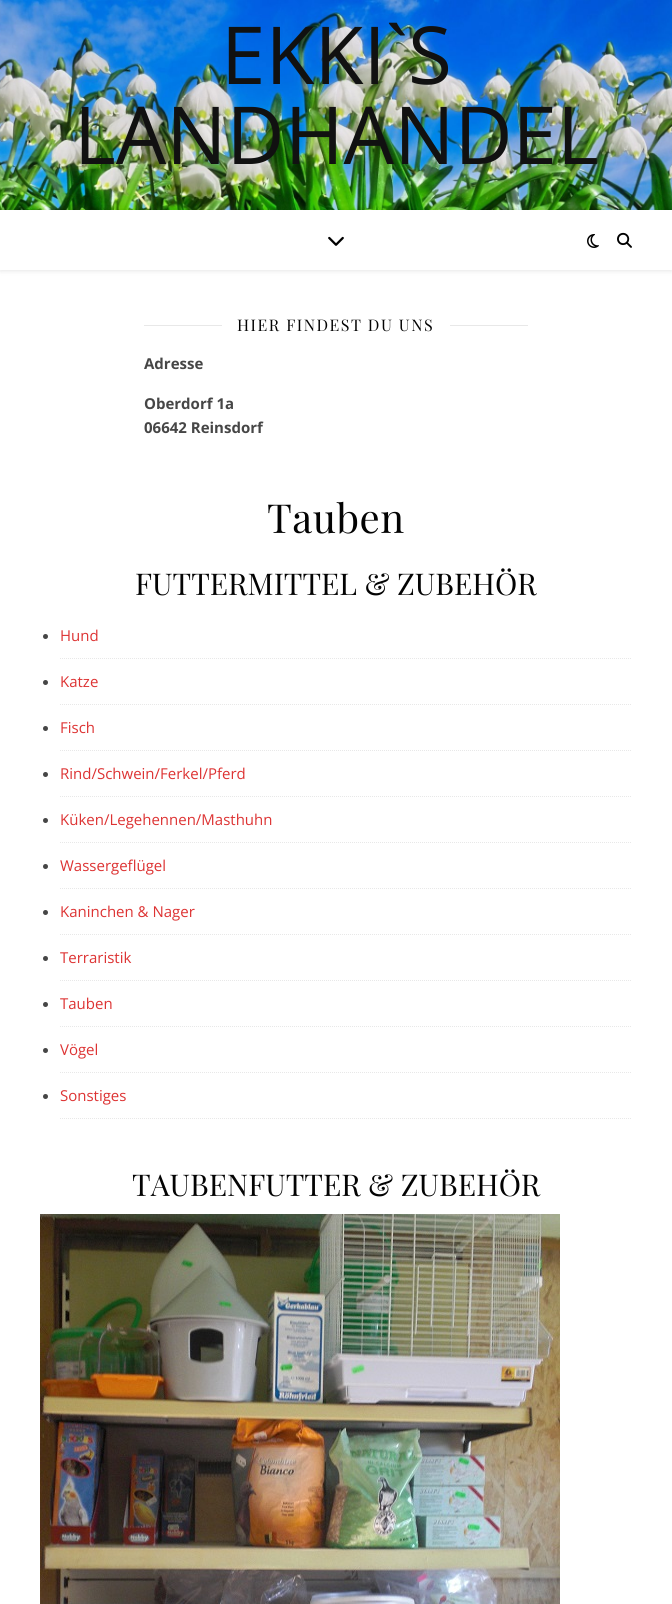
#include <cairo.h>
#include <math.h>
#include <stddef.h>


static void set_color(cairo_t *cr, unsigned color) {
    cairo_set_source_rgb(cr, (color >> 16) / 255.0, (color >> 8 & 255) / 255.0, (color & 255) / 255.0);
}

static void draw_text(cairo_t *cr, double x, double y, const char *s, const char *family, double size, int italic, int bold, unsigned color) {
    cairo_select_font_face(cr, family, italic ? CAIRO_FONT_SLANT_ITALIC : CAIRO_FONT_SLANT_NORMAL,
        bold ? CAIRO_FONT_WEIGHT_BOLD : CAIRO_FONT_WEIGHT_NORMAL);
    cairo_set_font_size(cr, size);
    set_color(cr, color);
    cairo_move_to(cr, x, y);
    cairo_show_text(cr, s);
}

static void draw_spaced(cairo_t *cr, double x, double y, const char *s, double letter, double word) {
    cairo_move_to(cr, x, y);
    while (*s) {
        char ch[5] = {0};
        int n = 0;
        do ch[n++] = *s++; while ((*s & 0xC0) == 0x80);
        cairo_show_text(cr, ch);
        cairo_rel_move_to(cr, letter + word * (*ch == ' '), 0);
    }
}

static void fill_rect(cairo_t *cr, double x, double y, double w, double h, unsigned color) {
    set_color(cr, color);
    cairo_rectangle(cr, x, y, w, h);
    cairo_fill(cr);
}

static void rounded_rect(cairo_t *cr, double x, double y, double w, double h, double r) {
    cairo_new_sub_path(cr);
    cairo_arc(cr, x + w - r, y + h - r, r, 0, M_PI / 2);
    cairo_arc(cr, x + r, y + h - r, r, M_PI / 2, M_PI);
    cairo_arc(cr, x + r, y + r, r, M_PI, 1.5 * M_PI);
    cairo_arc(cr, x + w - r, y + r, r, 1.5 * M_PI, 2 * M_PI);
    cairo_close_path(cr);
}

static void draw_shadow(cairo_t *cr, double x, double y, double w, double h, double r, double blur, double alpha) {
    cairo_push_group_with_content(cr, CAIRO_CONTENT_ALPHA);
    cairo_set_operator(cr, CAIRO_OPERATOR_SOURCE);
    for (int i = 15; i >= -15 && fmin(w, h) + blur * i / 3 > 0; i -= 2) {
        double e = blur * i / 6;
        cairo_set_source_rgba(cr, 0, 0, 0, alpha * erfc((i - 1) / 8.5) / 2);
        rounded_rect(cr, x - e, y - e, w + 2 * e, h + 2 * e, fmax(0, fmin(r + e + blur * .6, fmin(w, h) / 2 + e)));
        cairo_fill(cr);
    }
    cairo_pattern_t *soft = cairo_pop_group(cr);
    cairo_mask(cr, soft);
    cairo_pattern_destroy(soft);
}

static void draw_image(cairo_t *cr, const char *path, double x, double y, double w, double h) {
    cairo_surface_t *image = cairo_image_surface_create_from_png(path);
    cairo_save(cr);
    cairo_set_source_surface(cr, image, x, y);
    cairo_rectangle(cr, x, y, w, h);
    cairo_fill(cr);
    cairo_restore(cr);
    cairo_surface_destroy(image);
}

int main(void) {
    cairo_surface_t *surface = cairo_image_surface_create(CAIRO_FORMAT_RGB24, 672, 1604);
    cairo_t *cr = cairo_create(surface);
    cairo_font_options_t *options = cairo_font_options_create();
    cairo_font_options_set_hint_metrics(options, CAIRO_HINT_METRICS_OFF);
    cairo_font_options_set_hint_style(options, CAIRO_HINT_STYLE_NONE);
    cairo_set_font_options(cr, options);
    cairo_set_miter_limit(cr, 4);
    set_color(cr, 0xFFFFFF);
    cairo_paint(cr);
    draw_image(cr, "assets/img1.png", 0, 0, 672, 210);
    draw_text(cr, 221, 84, "EKKI`S", "Open Sans", 80, 0, 0, 0x111111);
    draw_text(cr, 74, 164, "LANDHANDEL", "Open Sans", 80, 0, 0, 0x111111);
    set_color(cr, 0x000000);
    draw_shadow(cr, 0, 211, 672, 60, 0, 2.5, 0.1);
    fill_rect(cr, 0, 210, 672, 60, 0xFFFFFF);
    draw_image(cr, "assets/img2.png", 328, 236, 16, 10);
    draw_image(cr, "assets/img3.png", 587, 234, 12, 14);
    draw_image(cr, "assets/img4.png", 617, 232, 15, 16);
    fill_rect(cr, 144, 325, 78, 1, 0xE8E8E8);
    cairo_select_font_face(cr, "Playfair Display", CAIRO_FONT_SLANT_NORMAL, CAIRO_FONT_WEIGHT_NORMAL);
    cairo_set_font_size(cr, 16);
    set_color(cr, 0x030303);
    draw_spaced(cr, 237, 331, "HIER FINDEST DU UNS", 1.5, 0);
    fill_rect(cr, 450, 325, 78, 1, 0xE8E8E8);
    draw_text(cr, 144, 369, "Adresse", "Open Sans", 15, 0, 1, 0x464646);
    draw_text(cr, 144, 409, "Oberdorf 1a", "Open Sans", 15, 0, 1, 0x464646);
    draw_text(cr, 144, 433, "06642 Reinsdorf", "Open Sans", 15, 0, 1, 0x464646);
    cairo_select_font_face(cr, "Playfair Display", CAIRO_FONT_SLANT_NORMAL, CAIRO_FONT_WEIGHT_NORMAL);
    cairo_set_font_size(cr, 40);
    set_color(cr, 0x030303);
    draw_spaced(cr, 267, 533, "Tauben", 0.5, 0);
    draw_text(cr, 135, 595, "FUTTERMITTEL & ZUBEHÖR", "Playfair Display", 30, 0, 0, 0x030303);
    set_color(cr, 0x464646);
    cairo_new_path(cr);
    cairo_arc(cr, 45.5, 636.5, 2.5, 0, 2 * M_PI);
    cairo_fill(cr);
    cairo_new_path(cr);
    cairo_move_to(cr, 60, 658.5);
    cairo_line_to(cr, 632, 658.5);
    set_color(cr, 0xE8E8E8);
    cairo_set_line_width(cr, 1);
    cairo_set_dash(cr, (double[]){1, 1}, 2, 0);
    cairo_stroke(cr);
    draw_text(cr, 60, 641, "Hund", "Open Sans", 15, 0, 0, 0xDD3333);
    set_color(cr, 0x464646);
    cairo_new_path(cr);
    cairo_arc(cr, 45.5, 682.5, 2.5, 0, 2 * M_PI);
    cairo_fill(cr);
    cairo_new_path(cr);
    cairo_move_to(cr, 60, 704.5);
    cairo_line_to(cr, 632, 704.5);
    set_color(cr, 0xE8E8E8);
    cairo_stroke(cr);
    draw_text(cr, 60, 687, "Katze", "Open Sans", 15, 0, 0, 0xDD3333);
    set_color(cr, 0x464646);
    cairo_new_path(cr);
    cairo_arc(cr, 45.5, 728.5, 2.5, 0, 2 * M_PI);
    cairo_fill(cr);
    cairo_new_path(cr);
    cairo_move_to(cr, 60, 750.5);
    cairo_line_to(cr, 632, 750.5);
    set_color(cr, 0xE8E8E8);
    cairo_stroke(cr);
    draw_text(cr, 60, 733, "Fisch", "Open Sans", 15, 0, 0, 0xDD3333);
    set_color(cr, 0x464646);
    cairo_new_path(cr);
    cairo_arc(cr, 45.5, 774.5, 2.5, 0, 2 * M_PI);
    cairo_fill(cr);
    cairo_new_path(cr);
    cairo_move_to(cr, 60, 796.5);
    cairo_line_to(cr, 632, 796.5);
    set_color(cr, 0xE8E8E8);
    cairo_stroke(cr);
    draw_text(cr, 60, 779, "Rind/Schwein/Ferkel/Pferd", "Open Sans", 15, 0, 0, 0xDD3333);
    set_color(cr, 0x464646);
    cairo_new_path(cr);
    cairo_arc(cr, 45.5, 820.5, 2.5, 0, 2 * M_PI);
    cairo_fill(cr);
    cairo_new_path(cr);
    cairo_move_to(cr, 60, 842.5);
    cairo_line_to(cr, 632, 842.5);
    set_color(cr, 0xE8E8E8);
    cairo_stroke(cr);
    draw_text(cr, 60, 825, "Küken/Legehennen/Masthuhn", "Open Sans", 15, 0, 0, 0xDD3333);
    set_color(cr, 0x464646);
    cairo_new_path(cr);
    cairo_arc(cr, 45.5, 866.5, 2.5, 0, 2 * M_PI);
    cairo_fill(cr);
    cairo_new_path(cr);
    cairo_move_to(cr, 60, 888.5);
    cairo_line_to(cr, 632, 888.5);
    set_color(cr, 0xE8E8E8);
    cairo_stroke(cr);
    draw_text(cr, 60, 871, "Wassergeflügel", "Open Sans", 15, 0, 0, 0xDD3333);
    set_color(cr, 0x464646);
    cairo_new_path(cr);
    cairo_arc(cr, 45.5, 912.5, 2.5, 0, 2 * M_PI);
    cairo_fill(cr);
    cairo_new_path(cr);
    cairo_move_to(cr, 60, 934.5);
    cairo_line_to(cr, 632, 934.5);
    set_color(cr, 0xE8E8E8);
    cairo_stroke(cr);
    draw_text(cr, 60, 917, "Kaninchen & Nager", "Open Sans", 15, 0, 0, 0xDD3333);
    set_color(cr, 0x464646);
    cairo_new_path(cr);
    cairo_arc(cr, 45.5, 958.5, 2.5, 0, 2 * M_PI);
    cairo_fill(cr);
    cairo_new_path(cr);
    cairo_move_to(cr, 60, 980.5);
    cairo_line_to(cr, 632, 980.5);
    set_color(cr, 0xE8E8E8);
    cairo_stroke(cr);
    draw_text(cr, 60, 963, "Terraristik", "Open Sans", 15, 0, 0, 0xDD3333);
    set_color(cr, 0x464646);
    cairo_new_path(cr);
    cairo_arc(cr, 45.5, 1004.5, 2.5, 0, 2 * M_PI);
    cairo_fill(cr);
    cairo_new_path(cr);
    cairo_move_to(cr, 60, 1026.5);
    cairo_line_to(cr, 632, 1026.5);
    set_color(cr, 0xE8E8E8);
    cairo_stroke(cr);
    draw_text(cr, 60, 1009, "Tauben", "Open Sans", 15, 0, 0, 0xDD3333);
    set_color(cr, 0x464646);
    cairo_new_path(cr);
    cairo_arc(cr, 45.5, 1050.5, 2.5, 0, 2 * M_PI);
    cairo_fill(cr);
    cairo_new_path(cr);
    cairo_move_to(cr, 60, 1072.5);
    cairo_line_to(cr, 632, 1072.5);
    set_color(cr, 0xE8E8E8);
    cairo_stroke(cr);
    draw_text(cr, 60, 1055, "Vögel", "Open Sans", 15, 0, 0, 0xDD3333);
    set_color(cr, 0x464646);
    cairo_new_path(cr);
    cairo_arc(cr, 45.5, 1096.5, 2.5, 0, 2 * M_PI);
    cairo_fill(cr);
    cairo_new_path(cr);
    cairo_move_to(cr, 60, 1118.5);
    cairo_line_to(cr, 632, 1118.5);
    set_color(cr, 0xE8E8E8);
    cairo_stroke(cr);
    draw_text(cr, 60, 1101, "Sonstiges", "Open Sans", 15, 0, 0, 0xDD3333);
    draw_text(cr, 132, 1196, "TAUBENFUTTER & ZUBEHÖR", "Playfair Display", 30, 0, 0, 0x030303);
    draw_image(cr, "assets/img5.png", 40, 1214, 520, 390);
    cairo_surface_write_to_png(surface, "output.png");
    cairo_font_options_destroy(options);
    cairo_destroy(cr);
    cairo_surface_destroy(surface);
    return 0;
}
